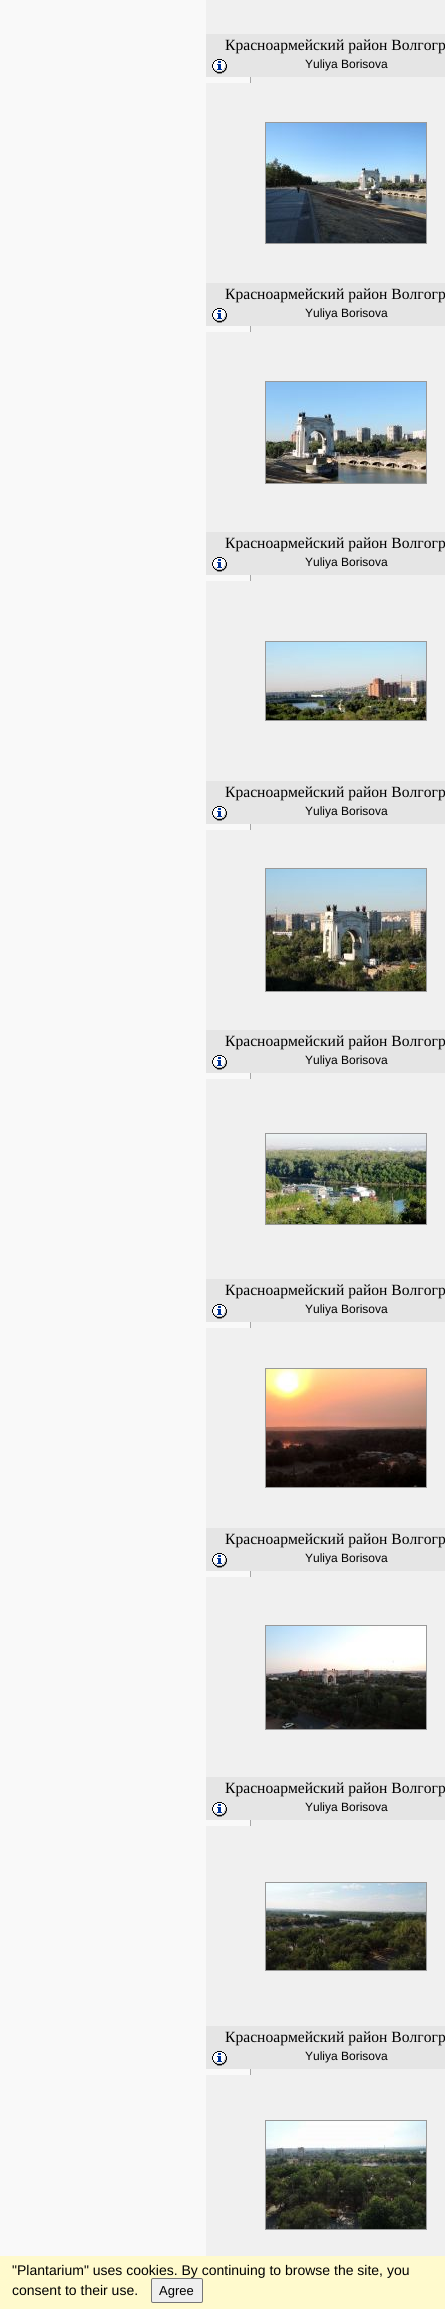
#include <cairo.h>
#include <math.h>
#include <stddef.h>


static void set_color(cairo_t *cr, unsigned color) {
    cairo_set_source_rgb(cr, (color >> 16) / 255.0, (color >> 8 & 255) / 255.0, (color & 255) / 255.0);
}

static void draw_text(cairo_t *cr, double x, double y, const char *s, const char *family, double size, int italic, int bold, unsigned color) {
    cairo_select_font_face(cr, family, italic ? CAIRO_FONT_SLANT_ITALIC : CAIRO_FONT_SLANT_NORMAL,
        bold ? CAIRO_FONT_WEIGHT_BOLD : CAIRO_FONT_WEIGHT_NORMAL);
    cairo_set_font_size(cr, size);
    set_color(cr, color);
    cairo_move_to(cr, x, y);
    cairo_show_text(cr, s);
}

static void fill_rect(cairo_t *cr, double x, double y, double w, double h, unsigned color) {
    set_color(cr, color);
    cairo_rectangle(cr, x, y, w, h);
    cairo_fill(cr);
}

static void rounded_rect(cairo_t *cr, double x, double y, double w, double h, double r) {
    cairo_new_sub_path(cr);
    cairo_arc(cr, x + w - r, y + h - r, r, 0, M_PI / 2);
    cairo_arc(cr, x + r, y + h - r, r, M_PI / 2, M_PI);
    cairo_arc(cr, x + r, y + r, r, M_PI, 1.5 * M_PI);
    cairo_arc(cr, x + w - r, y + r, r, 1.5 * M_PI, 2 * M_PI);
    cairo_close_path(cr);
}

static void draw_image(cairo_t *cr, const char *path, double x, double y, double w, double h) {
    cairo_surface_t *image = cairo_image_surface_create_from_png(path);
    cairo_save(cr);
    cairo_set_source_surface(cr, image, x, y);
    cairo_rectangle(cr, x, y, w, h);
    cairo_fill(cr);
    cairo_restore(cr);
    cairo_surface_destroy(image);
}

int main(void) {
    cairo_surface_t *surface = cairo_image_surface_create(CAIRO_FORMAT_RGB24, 445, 2309);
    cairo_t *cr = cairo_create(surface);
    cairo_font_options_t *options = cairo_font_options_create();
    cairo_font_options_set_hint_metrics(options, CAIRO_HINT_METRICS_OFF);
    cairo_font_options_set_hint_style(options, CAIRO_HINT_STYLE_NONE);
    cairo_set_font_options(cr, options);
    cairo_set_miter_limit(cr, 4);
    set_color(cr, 0xF9F9F9);
    cairo_paint(cr);
    fill_rect(cr, 206, 0, 239, 34, 0xF0F0F0);
    fill_rect(cr, 206, 34, 239, 43, 0xE5E5E5);
    draw_text(cr, 225, 50, "Красноармейский район Волгогр", "Liberation Serif", 15.6, 0, 0, 0x000000);
    draw_image(cr, "assets/img1.png", 212, 59, 15, 15);
    draw_text(cr, 305, 68, "Yuliya Borisova", "Liberation Sans", 12, 0, 0, 0x000000);
    fill_rect(cr, 250, 77, 1, 1998, 0xA6A6A6);
    fill_rect(cr, 206, 83, 45, 200, 0xF0F0F0);
    fill_rect(cr, 251, 77, 194, 1998, 0xF0F0F0);
    cairo_rectangle(cr, 265.5, 122.5, 161, 121);
    set_color(cr, 0x999999);
    cairo_set_line_width(cr, 1);
    cairo_stroke(cr);
    draw_image(cr, "assets/img2.png", 266, 123, 160, 120);
    fill_rect(cr, 206, 283, 239, 43, 0xE5E5E5);
    draw_text(cr, 225, 299, "Красноармейский район Волгогр", "Liberation Serif", 15.6, 0, 0, 0x000000);
    draw_image(cr, "assets/img1.png", 212, 308, 15, 15);
    draw_text(cr, 305, 317, "Yuliya Borisova", "Liberation Sans", 12, 0, 0, 0x000000);
    fill_rect(cr, 206, 332, 45, 200, 0xF0F0F0);
    cairo_rectangle(cr, 265.5, 381.5, 161, 102);
    set_color(cr, 0x999999);
    cairo_stroke(cr);
    draw_image(cr, "assets/img3.png", 266, 382, 160, 101);
    fill_rect(cr, 206, 532, 239, 43, 0xE5E5E5);
    draw_text(cr, 225, 548, "Красноармейский район Волгогр", "Liberation Serif", 15.6, 0, 0, 0x000000);
    draw_image(cr, "assets/img1.png", 212, 557, 15, 15);
    draw_text(cr, 305, 566, "Yuliya Borisova", "Liberation Sans", 12, 0, 0, 0x000000);
    fill_rect(cr, 206, 581, 45, 200, 0xF0F0F0);
    cairo_rectangle(cr, 265.5, 641.5, 161, 79);
    set_color(cr, 0x999999);
    cairo_stroke(cr);
    draw_image(cr, "assets/img4.png", 266, 642, 160, 78);
    fill_rect(cr, 206, 781, 239, 43, 0xE5E5E5);
    draw_text(cr, 225, 797, "Красноармейский район Волгогр", "Liberation Serif", 15.6, 0, 0, 0x000000);
    draw_image(cr, "assets/img1.png", 212, 806, 15, 15);
    draw_text(cr, 305, 815, "Yuliya Borisova", "Liberation Sans", 12, 0, 0, 0x000000);
    fill_rect(cr, 206, 830, 45, 200, 0xF0F0F0);
    cairo_rectangle(cr, 265.5, 868.5, 161, 123);
    set_color(cr, 0x999999);
    cairo_stroke(cr);
    draw_image(cr, "assets/img5.png", 266, 869, 160, 122);
    fill_rect(cr, 206, 1030, 239, 43, 0xE5E5E5);
    draw_text(cr, 225, 1046, "Красноармейский район Волгогр", "Liberation Serif", 15.6, 0, 0, 0x000000);
    draw_image(cr, "assets/img1.png", 212, 1055, 15, 15);
    draw_text(cr, 305, 1064, "Yuliya Borisova", "Liberation Sans", 12, 0, 0, 0x000000);
    fill_rect(cr, 206, 1079, 45, 200, 0xF0F0F0);
    cairo_rectangle(cr, 265.5, 1133.5, 161, 91);
    set_color(cr, 0x999999);
    cairo_stroke(cr);
    draw_image(cr, "assets/img6.png", 266, 1134, 160, 90);
    fill_rect(cr, 206, 1279, 239, 43, 0xE5E5E5);
    draw_text(cr, 225, 1295, "Красноармейский район Волгогр", "Liberation Serif", 15.6, 0, 0, 0x000000);
    draw_image(cr, "assets/img1.png", 212, 1304, 15, 15);
    draw_text(cr, 305, 1313, "Yuliya Borisova", "Liberation Sans", 12, 0, 0, 0x000000);
    fill_rect(cr, 206, 1328, 45, 200, 0xF0F0F0);
    cairo_rectangle(cr, 265.5, 1368.5, 161, 119);
    set_color(cr, 0x999999);
    cairo_stroke(cr);
    draw_image(cr, "assets/img7.png", 266, 1369, 160, 118);
    fill_rect(cr, 206, 1528, 239, 43, 0xE5E5E5);
    draw_text(cr, 225, 1544, "Красноармейский район Волгогр", "Liberation Serif", 15.6, 0, 0, 0x000000);
    draw_image(cr, "assets/img1.png", 212, 1553, 15, 15);
    draw_text(cr, 305, 1562, "Yuliya Borisova", "Liberation Sans", 12, 0, 0, 0x000000);
    fill_rect(cr, 206, 1577, 45, 200, 0xF0F0F0);
    cairo_rectangle(cr, 265.5, 1625.5, 161, 104);
    set_color(cr, 0x999999);
    cairo_stroke(cr);
    draw_image(cr, "assets/img8.png", 266, 1626, 160, 103);
    fill_rect(cr, 206, 1777, 239, 43, 0xE5E5E5);
    draw_text(cr, 225, 1793, "Красноармейский район Волгогр", "Liberation Serif", 15.6, 0, 0, 0x000000);
    draw_image(cr, "assets/img1.png", 212, 1802, 15, 15);
    draw_text(cr, 305, 1811, "Yuliya Borisova", "Liberation Sans", 12, 0, 0, 0x000000);
    fill_rect(cr, 206, 1826, 45, 200, 0xF0F0F0);
    cairo_rectangle(cr, 265.5, 1882.5, 161, 88);
    set_color(cr, 0x999999);
    cairo_stroke(cr);
    draw_image(cr, "assets/img9.png", 266, 1883, 160, 87);
    fill_rect(cr, 206, 2026, 239, 43, 0xE5E5E5);
    draw_text(cr, 225, 2042, "Красноармейский район Волгогр", "Liberation Serif", 15.6, 0, 0, 0x000000);
    draw_image(cr, "assets/img1.png", 212, 2051, 15, 15);
    draw_text(cr, 305, 2060, "Yuliya Borisova", "Liberation Sans", 12, 0, 0, 0x000000);
    fill_rect(cr, 206, 2075, 239, 181, 0xF0F0F0);
    cairo_rectangle(cr, 265.5, 2120.5, 161, 109);
    set_color(cr, 0x999999);
    cairo_stroke(cr);
    draw_image(cr, "assets/img10.png", 266, 2121, 160, 108);
    fill_rect(cr, 0, 2256, 445, 53, 0xFFFACD);
    draw_text(cr, 12, 2275, "\"Plantarium\" uses cookies. By continuing to browse the site, you", "Liberation Sans", 14, 0, 0, 0x000000);
    draw_text(cr, 12, 2295, "consent to their use.", "Liberation Sans", 14, 0, 0, 0x000000);
    set_color(cr, 0xEFEFEF);
    rounded_rect(cr, 151.5, 2278.5, 51, 24, 1.5);
    cairo_fill_preserve(cr);
    set_color(cr, 0x767676);
    cairo_stroke(cr);
    draw_text(cr, 159, 2295, "Agree", "Liberation Sans", 13, 0, 0, 0x000000);
    cairo_surface_write_to_png(surface, "output.png");
    cairo_font_options_destroy(options);
    cairo_destroy(cr);
    cairo_surface_destroy(surface);
    return 0;
}
